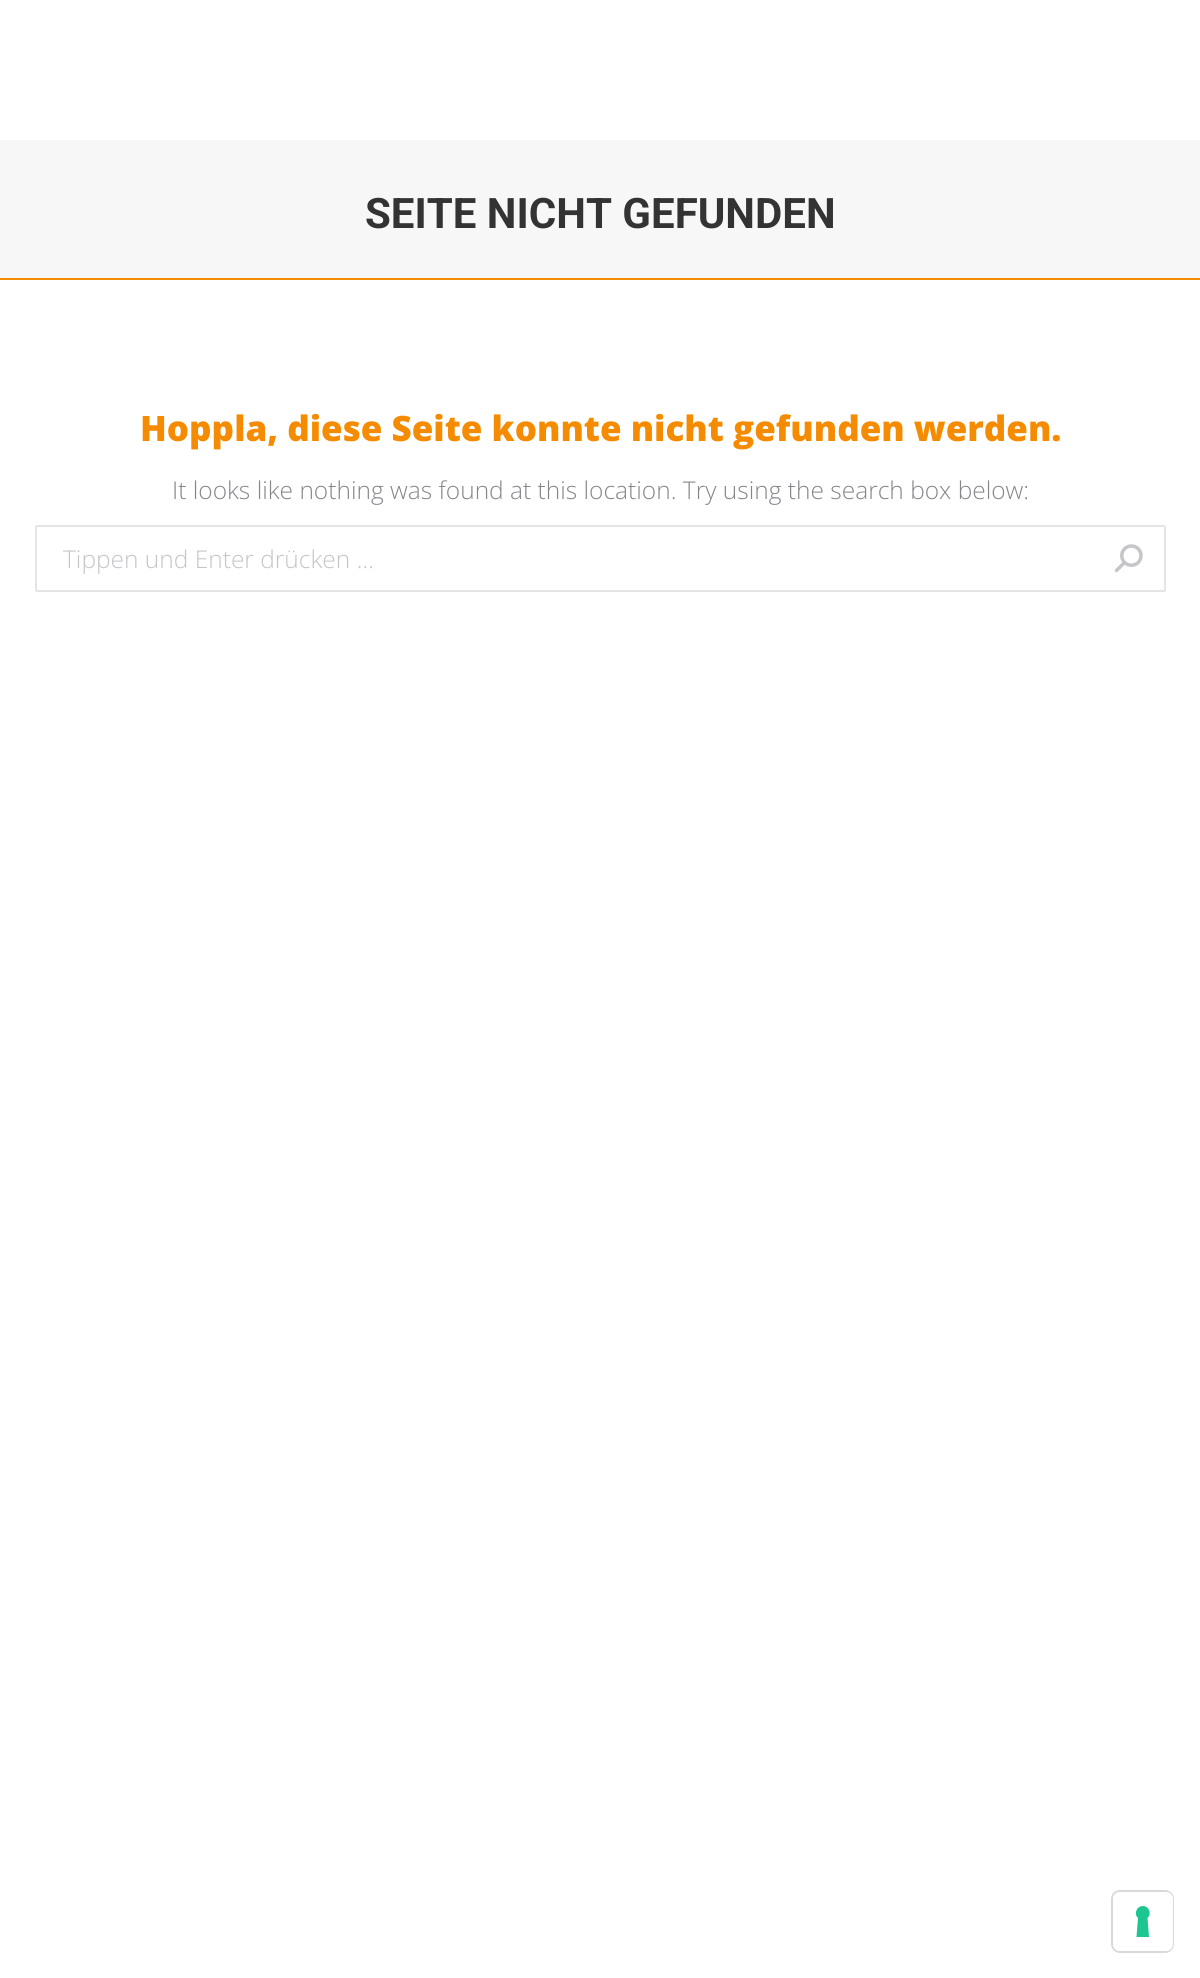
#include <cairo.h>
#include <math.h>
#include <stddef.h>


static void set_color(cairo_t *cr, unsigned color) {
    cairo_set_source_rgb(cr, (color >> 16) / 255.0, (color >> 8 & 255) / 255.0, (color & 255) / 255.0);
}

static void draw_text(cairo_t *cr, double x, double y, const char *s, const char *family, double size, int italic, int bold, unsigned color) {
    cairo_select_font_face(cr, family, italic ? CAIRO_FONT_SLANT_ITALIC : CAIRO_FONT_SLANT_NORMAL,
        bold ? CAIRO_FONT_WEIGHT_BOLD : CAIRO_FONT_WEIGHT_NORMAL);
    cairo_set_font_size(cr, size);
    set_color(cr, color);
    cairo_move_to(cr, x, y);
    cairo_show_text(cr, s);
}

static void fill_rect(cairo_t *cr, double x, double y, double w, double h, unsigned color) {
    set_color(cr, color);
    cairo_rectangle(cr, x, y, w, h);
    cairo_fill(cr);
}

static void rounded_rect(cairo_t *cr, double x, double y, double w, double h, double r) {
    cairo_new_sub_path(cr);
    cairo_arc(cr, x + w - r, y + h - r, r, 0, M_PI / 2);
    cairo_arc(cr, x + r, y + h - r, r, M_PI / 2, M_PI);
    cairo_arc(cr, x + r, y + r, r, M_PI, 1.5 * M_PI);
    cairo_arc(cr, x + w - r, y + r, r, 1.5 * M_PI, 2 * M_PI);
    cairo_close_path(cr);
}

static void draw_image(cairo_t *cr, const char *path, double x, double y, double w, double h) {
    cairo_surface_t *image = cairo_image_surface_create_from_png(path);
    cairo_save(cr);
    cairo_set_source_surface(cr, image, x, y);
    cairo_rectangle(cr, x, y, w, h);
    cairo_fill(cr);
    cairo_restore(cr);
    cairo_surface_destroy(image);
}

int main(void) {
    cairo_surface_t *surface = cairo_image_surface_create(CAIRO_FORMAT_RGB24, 1200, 1978);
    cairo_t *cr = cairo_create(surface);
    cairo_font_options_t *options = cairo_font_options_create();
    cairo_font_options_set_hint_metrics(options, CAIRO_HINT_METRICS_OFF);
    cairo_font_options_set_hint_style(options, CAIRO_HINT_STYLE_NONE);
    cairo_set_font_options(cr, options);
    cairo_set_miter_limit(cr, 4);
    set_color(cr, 0xFFFFFF);
    cairo_paint(cr);
    fill_rect(cr, 0, 140, 1200, 138, 0xF7F7F7);
    fill_rect(cr, 0, 278, 1200, 2, 0xF58B01);
    draw_text(cr, 365, 228, "SEITE NICHT GEFUNDEN", "Roboto", 42, 0, 1, 0x333333);
    draw_text(cr, 140, 441, "Hoppla, diese Seite konnte nicht gefunden werden.", "Open Sans ExtraBold", 35, 0, 0, 0xF58B01);
    draw_text(cr, 172, 499, "It looks like nothing was found at this location. Try using the search box below:", "Open Sans Light", 24.5, 0, 0, 0x85868C);
    rounded_rect(cr, 36, 526, 1129, 65, 1);
    set_color(cr, 0xE5E5E5);
    cairo_stroke(cr);
    draw_text(cr, 63, 568, "Tippen und Enter drücken …", "Open Sans Light", 24.5, 0, 0, 0xC4C5C9);
    draw_image(cr, "assets/img1.png", 1114, 544, 29, 29);
    rounded_rect(cr, 1112, 1891, 61, 61, 8);
    set_color(cr, 0xD9D9D9);
    cairo_stroke(cr);
    set_color(cr, 0xFFFFFF);
    rounded_rect(cr, 1113, 1892, 60, 59, 7);
    cairo_fill(cr);
    set_color(cr, 0x1CC691);
    cairo_set_fill_rule(cr, CAIRO_FILL_RULE_EVEN_ODD);
    cairo_new_path(cr);
    cairo_move_to(cr, 1143, 1906);
    cairo_curve_to(cr, 1149, 1906, 1152, 1914, 1147.5, 1918);
    cairo_line_to(cr, 1149, 1937);
    cairo_line_to(cr, 1136.5, 1937);
    cairo_line_to(cr, 1138, 1918);
    cairo_curve_to(cr, 1133.5, 1914, 1136.5, 1906, 1143, 1906);
    cairo_close_path(cr);
    cairo_fill(cr);
    cairo_surface_write_to_png(surface, "output.png");
    cairo_font_options_destroy(options);
    cairo_destroy(cr);
    cairo_surface_destroy(surface);
    return 0;
}
